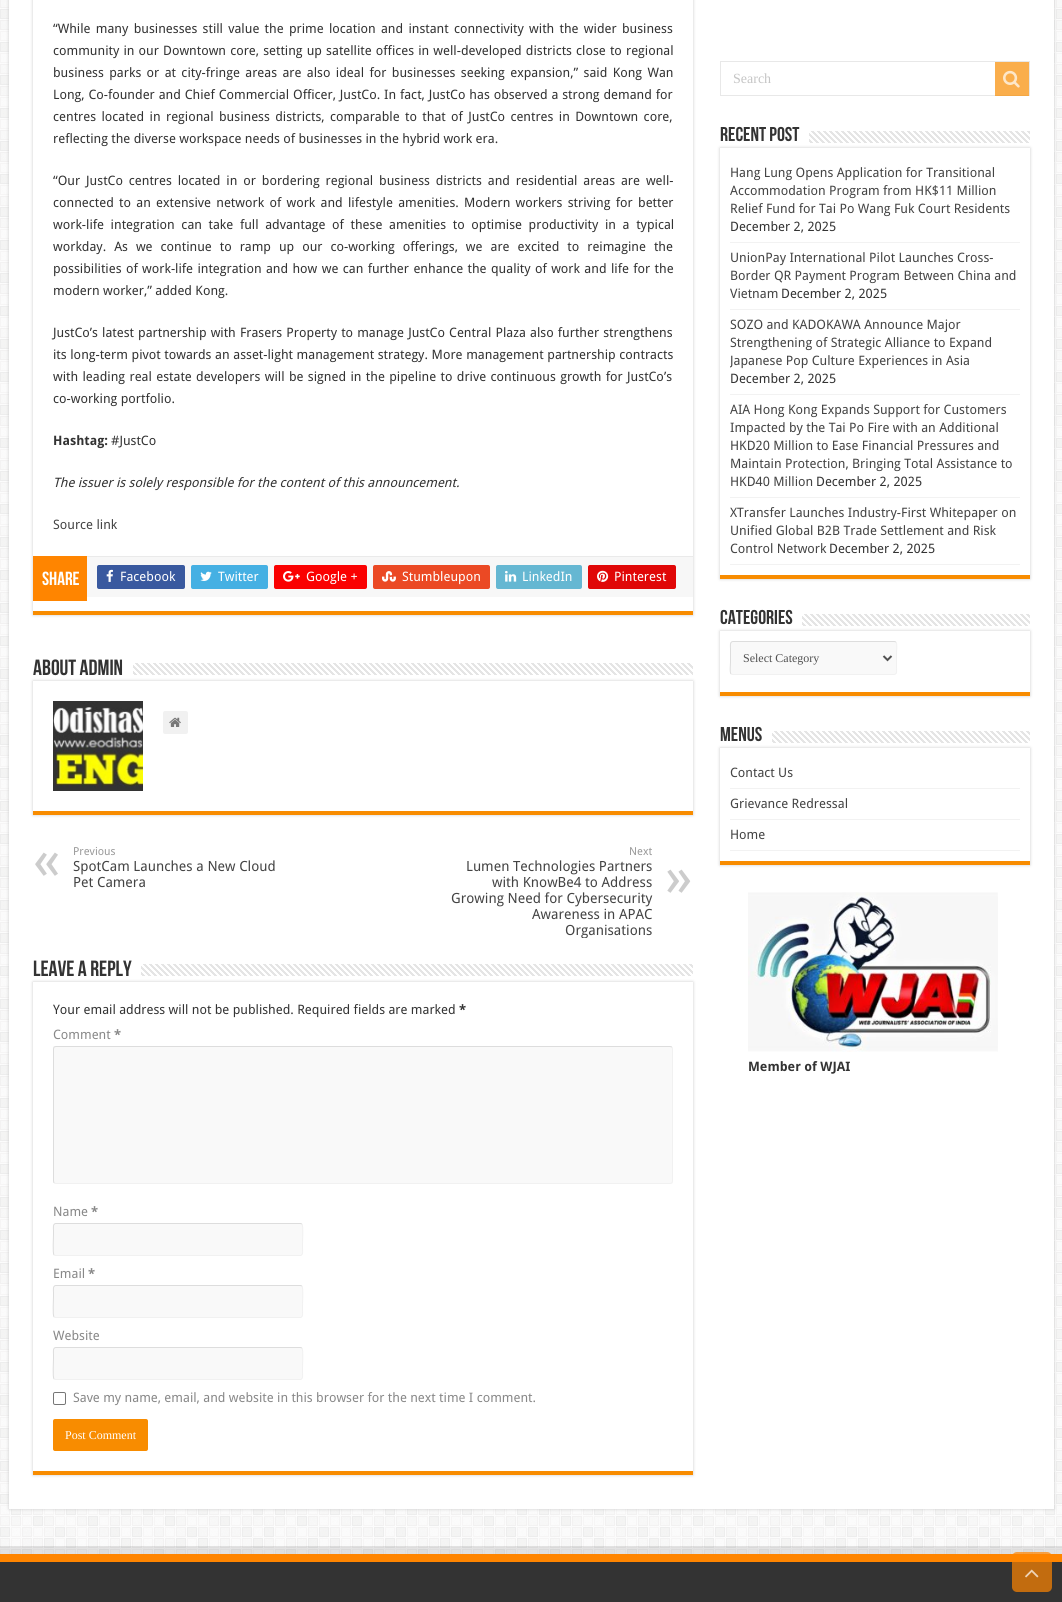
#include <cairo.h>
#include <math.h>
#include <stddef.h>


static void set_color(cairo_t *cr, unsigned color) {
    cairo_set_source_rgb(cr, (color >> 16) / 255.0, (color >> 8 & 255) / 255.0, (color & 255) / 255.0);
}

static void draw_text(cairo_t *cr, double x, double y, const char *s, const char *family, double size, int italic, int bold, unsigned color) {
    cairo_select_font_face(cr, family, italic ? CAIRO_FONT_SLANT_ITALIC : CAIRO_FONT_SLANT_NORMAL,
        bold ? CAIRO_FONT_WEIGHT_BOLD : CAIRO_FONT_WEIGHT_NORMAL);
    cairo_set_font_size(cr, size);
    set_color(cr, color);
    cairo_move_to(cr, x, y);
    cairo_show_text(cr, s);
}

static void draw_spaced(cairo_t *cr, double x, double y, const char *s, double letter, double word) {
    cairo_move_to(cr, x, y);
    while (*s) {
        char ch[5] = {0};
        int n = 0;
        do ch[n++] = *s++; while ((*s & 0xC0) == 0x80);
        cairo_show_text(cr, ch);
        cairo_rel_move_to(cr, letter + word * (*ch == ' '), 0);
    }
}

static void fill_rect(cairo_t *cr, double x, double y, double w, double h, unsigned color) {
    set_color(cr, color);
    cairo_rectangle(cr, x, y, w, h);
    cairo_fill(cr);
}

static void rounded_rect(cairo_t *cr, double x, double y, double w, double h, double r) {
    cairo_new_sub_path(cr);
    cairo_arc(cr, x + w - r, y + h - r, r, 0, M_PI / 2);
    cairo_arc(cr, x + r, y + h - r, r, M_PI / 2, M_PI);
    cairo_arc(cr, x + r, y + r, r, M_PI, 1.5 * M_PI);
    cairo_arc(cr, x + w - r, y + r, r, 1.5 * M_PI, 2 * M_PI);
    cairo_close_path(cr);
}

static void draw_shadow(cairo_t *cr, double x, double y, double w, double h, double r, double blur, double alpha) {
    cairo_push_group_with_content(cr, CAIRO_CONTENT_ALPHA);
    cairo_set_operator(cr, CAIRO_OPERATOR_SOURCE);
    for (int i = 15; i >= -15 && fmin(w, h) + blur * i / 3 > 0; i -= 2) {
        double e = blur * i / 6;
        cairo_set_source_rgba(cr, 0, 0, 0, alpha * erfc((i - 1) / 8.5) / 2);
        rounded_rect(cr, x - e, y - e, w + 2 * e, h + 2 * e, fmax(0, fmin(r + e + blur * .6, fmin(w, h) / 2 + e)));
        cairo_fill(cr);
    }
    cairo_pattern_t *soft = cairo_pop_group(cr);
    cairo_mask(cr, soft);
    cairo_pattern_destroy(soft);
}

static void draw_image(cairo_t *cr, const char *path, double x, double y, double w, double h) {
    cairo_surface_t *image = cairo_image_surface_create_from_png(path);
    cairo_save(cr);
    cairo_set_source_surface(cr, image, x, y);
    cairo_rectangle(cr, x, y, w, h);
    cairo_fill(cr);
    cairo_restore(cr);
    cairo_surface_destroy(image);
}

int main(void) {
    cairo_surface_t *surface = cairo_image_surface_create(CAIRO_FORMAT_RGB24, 1062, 1602);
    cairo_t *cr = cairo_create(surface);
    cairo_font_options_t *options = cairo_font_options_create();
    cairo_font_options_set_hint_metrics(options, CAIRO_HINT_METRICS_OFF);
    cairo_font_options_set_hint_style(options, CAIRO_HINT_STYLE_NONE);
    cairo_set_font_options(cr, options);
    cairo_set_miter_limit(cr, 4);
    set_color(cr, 0xFFFFFF);
    cairo_paint(cr);
    draw_image(cr, "assets/img1.png", 0, 0, 1062, 1554);
    set_color(cr, 0xCACACA);
    draw_shadow(cr, 9, -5, 1045, 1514, 0, 1.5, 1);
    fill_rect(cr, 9, 0, 1045, 1509, 0xFFFFFF);
    cairo_save(cr);
    cairo_set_fill_rule(cr, CAIRO_FILL_RULE_EVEN_ODD);
    cairo_new_path(cr);
    cairo_move_to(cr, 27, 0);
    cairo_line_to(cr, 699, 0);
    cairo_line_to(cr, 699, 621);
    cairo_line_to(cr, 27, 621);
    cairo_close_path(cr);
    cairo_move_to(cr, 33, -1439);
    cairo_line_to(cr, 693, -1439);
    cairo_line_to(cr, 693, 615);
    cairo_line_to(cr, 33, 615);
    cairo_close_path(cr);
    cairo_clip(cr);
    set_color(cr, 0xCACACA);
    draw_shadow(cr, 33, -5, 660, 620, 0, 1.5, 1);
    cairo_restore(cr);
    fill_rect(cr, 33, 611, 660, 4, 0xF88C00);
    cairo_select_font_face(cr, "Droid Sans", CAIRO_FONT_SLANT_NORMAL, CAIRO_FONT_WEIGHT_NORMAL);
    cairo_set_font_size(cr, 13);
    set_color(cr, 0x333333);
    draw_spaced(cr, 53, 33, "“While many businesses still value the prime location and instant connectivity with the wider business", 0, 1.9);
    draw_spaced(cr, 53, 55, "community in our Downtown core, setting up satellite offices in well-developed districts close to regional", 0, 0.75);
    draw_spaced(cr, 53, 77, "business parks or at city-fringe areas are also ideal for businesses seeking expansion,” said Kong Wan", 0, 2);
    draw_spaced(cr, 53, 99, "Long, Co-founder and Chief Commercial Officer, JustCo. In fact, JustCo has observed a strong demand for", 0, 0.5);
    draw_spaced(cr, 53, 121, "centres located in regional business districts, comparable to that of JustCo centres in Downtown core,", 0, 2);
    draw_text(cr, 53, 143, "reflecting the diverse workspace needs of businesses in the hybrid work era.", "Droid Sans", 13, 0, 0, 0x333333);
    draw_spaced(cr, 53, 185, "“Our JustCo centres located in or bordering regional business districts and residential areas are well-", 0, 2.5);
    draw_spaced(cr, 53, 207, "connected to an extensive network of work and lifestyle amenities. Modern workers striving for better", 0, 1.9);
    draw_spaced(cr, 53, 229, "work-life integration can take full advantage of these amenities to optimise productivity in a typical", 0, 3.25);
    draw_spaced(cr, 53, 251, "workday. As we continue to ramp up our co-working offerings, we are excited to reimagine the", 0, 4.6);
    draw_spaced(cr, 53, 273, "possibilities of work-life integration and how we can further enhance the quality of work and life for the", 0, 1);
    draw_text(cr, 53, 295, "modern worker,” added Kong.", "Droid Sans", 13, 0, 0, 0x333333);
    draw_spaced(cr, 53, 337, "JustCo’s latest partnership with Frasers Property to manage JustCo Central Plaza also further strengthens", 0, 0.75);
    draw_spaced(cr, 53, 359, "its long-term pivot towards an asset-light management strategy. More management partnership contracts", 0, 0.25);
    draw_spaced(cr, 53, 381, "with leading real estate developers will be signed in the pipeline to drive continuous growth for JustCo’s", 0, 1);
    draw_text(cr, 53, 403, "co-working portfolio.", "Droid Sans", 13, 0, 0, 0x333333);
    draw_text(cr, 53, 445, "Hashtag:", "Droid Sans", 13, 0, 1, 0x333333);
    draw_text(cr, 111, 445, "#JustCo", "Droid Sans", 13, 0, 0, 0x333333);
    draw_text(cr, 53, 487, "The issuer is solely responsible for the content of this announcement.", "Droid Sans", 13, 1, 0, 0x333333);
    draw_text(cr, 53, 529, "Source link", "Droid Sans", 13, 0, 0, 0x444444);
    fill_rect(cr, 87, 557, 606, 40, 0xF7F7F7);
    fill_rect(cr, 87, 556, 606, 1, 0xEAEAEA);
    fill_rect(cr, 33, 556, 54, 45, 0xFF8500);
    draw_text(cr, 42, 585, "Share", "Bebas Neue", 19, 0, 1, 0xFFFFFF);
    set_color(cr, 0x39599F);
    rounded_rect(cr, 97, 565, 88, 24, 2);
    cairo_fill(cr);
    draw_image(cr, "assets/img2.png", 106, 569, 7, 13);
    draw_text(cr, 120, 581, "Facebook", "Droid Sans", 13, 0, 0, 0xFFFFFF);
    set_color(cr, 0x45B0E3);
    rounded_rect(cr, 191, 565, 77, 24, 2);
    cairo_fill(cr);
    draw_image(cr, "assets/img3.png", 200, 571, 12, 10);
    draw_text(cr, 218, 581, "Twitter", "Droid Sans", 13, 0, 0, 0xFFFFFF);
    set_color(cr, 0xFA0101);
    rounded_rect(cr, 274, 565, 93, 24, 2);
    cairo_fill(cr);
    draw_image(cr, "assets/img4.png", 283, 571, 17, 11);
    draw_text(cr, 306, 581, "Google +", "Droid Sans", 13, 0, 0, 0xFFFFFF);
    set_color(cr, 0xEB4924);
    rounded_rect(cr, 373, 565, 117, 24, 2);
    cairo_fill(cr);
    draw_image(cr, "assets/img5.png", 382, 571, 14, 11);
    draw_text(cr, 402, 581, "Stumbleupon", "Droid Sans", 13, 0, 0, 0xFFFFFF);
    set_color(cr, 0x65B7D2);
    rounded_rect(cr, 496, 565, 86, 24, 2);
    cairo_fill(cr);
    draw_image(cr, "assets/img6.png", 505, 570, 12, 12);
    draw_text(cr, 522, 581, "LinkedIn", "Droid Sans", 13, 0, 0, 0xFFFFFF);
    set_color(cr, 0xE00707);
    rounded_rect(cr, 588, 565, 88, 24, 2);
    cairo_fill(cr);
    draw_image(cr, "assets/img7.png", 597, 570, 12, 12);
    draw_text(cr, 614, 581, "Pinterest", "Droid Sans", 13, 0, 0, 0xFFFFFF);
    cairo_save(cr);
    cairo_set_fill_rule(cr, CAIRO_FILL_RULE_EVEN_ODD);
    cairo_new_path(cr);
    cairo_move_to(cr, 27, 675);
    cairo_line_to(cr, 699, 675);
    cairo_line_to(cr, 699, 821);
    cairo_line_to(cr, 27, 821);
    cairo_close_path(cr);
    cairo_move_to(cr, 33, 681);
    cairo_line_to(cr, 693, 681);
    cairo_line_to(cr, 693, 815);
    cairo_line_to(cr, 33, 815);
    cairo_close_path(cr);
    cairo_clip(cr);
    set_color(cr, 0xCACACA);
    draw_shadow(cr, 33, 681, 660, 134, 0, 1.5, 1);
    cairo_restore(cr);
    draw_text(cr, 33, 675, "About admin", "Bebas Neue", 22, 0, 1, 0x333333);
    draw_image(cr, "assets/img8.png", 133, 663, 560, 12);
    fill_rect(cr, 33, 811, 660, 4, 0xF88C00);
    draw_image(cr, "assets/img9.png", 53, 701, 90, 90);
    set_color(cr, 0xF1F1F1);
    rounded_rect(cr, 163, 711, 25, 23, 2);
    cairo_fill(cr);
    draw_image(cr, "assets/img10.png", 169, 717, 12, 10);
    draw_text(cr, 73, 855, "Previous", "Droid Sans", 11, 0, 0, 0x999999);
    draw_text(cr, 33, 879, "«", "Droid Sans", 56, 0, 0, 0xCCCCCC);
    draw_text(cr, 73, 871, "SpotCam Launches a New Cloud", "Droid Sans", 14, 0, 0, 0x444444);
    draw_text(cr, 73, 887, "Pet Camera", "Droid Sans", 14, 0, 0, 0x444444);
    draw_text(cr, 629, 855, "Next", "Droid Sans", 11, 0, 0, 0x999999);
    draw_text(cr, 466, 871, "Lumen Technologies Partners", "Droid Sans", 14, 0, 0, 0x444444);
    draw_text(cr, 492, 887, "with KnowBe4 to Address", "Droid Sans", 14, 0, 0, 0x444444);
    draw_text(cr, 665, 896, "»", "Droid Sans", 56, 0, 0, 0xCCCCCC);
    draw_text(cr, 451, 903, "Growing Need for Cybersecurity", "Droid Sans", 14, 0, 0, 0x444444);
    draw_text(cr, 532, 919, "Awareness in APAC", "Droid Sans", 14, 0, 0, 0x444444);
    cairo_save(cr);
    cairo_rectangle(cr, 33, 845, 660, 93);
    cairo_clip(cr);
    draw_text(cr, 565, 935, "Organisations", "Droid Sans", 14, 0, 0, 0x444444);
    cairo_restore(cr);
    draw_text(cr, 33, 976, "Leave a Reply", "Bebas Neue", 22, 0, 1, 0x333333);
    draw_image(cr, "assets/img11.png", 141, 964, 552, 12);
    cairo_save(cr);
    cairo_set_fill_rule(cr, CAIRO_FILL_RULE_EVEN_ODD);
    cairo_new_path(cr);
    cairo_move_to(cr, 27, 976);
    cairo_line_to(cr, 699, 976);
    cairo_line_to(cr, 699, 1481);
    cairo_line_to(cr, 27, 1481);
    cairo_close_path(cr);
    cairo_move_to(cr, 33, 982);
    cairo_line_to(cr, 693, 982);
    cairo_line_to(cr, 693, 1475);
    cairo_line_to(cr, 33, 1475);
    cairo_close_path(cr);
    cairo_clip(cr);
    set_color(cr, 0xCACACA);
    draw_shadow(cr, 33, 982, 660, 493, 0, 1.5, 1);
    cairo_restore(cr);
    fill_rect(cr, 33, 1471, 660, 4, 0xF88C00);
    draw_text(cr, 53, 1014, "Your email address will not be published. Required fields are marked", "Droid Sans", 13, 0, 0, 0x333333);
    draw_text(cr, 459, 1014, "*", "Droid Sans", 13, 0, 1, 0x333333);
    draw_text(cr, 53, 1039, "Comment", "Droid Sans", 13, 0, 0, 0x888888);
    draw_text(cr, 114, 1039, "*", "Droid Sans", 13, 0, 1, 0x888888);
    set_color(cr, 0xF9F9F9);
    rounded_rect(cr, 53, 1046, 620, 138, 3);
    cairo_fill(cr);
    cairo_new_path(cr);
    cairo_move_to(cr, 672, 1047);
    cairo_line_to(cr, 672.5, 1049);
    cairo_line_to(cr, 672.5, 1181);
    cairo_line_to(cr, 672, 1183);
    cairo_line_to(cr, 670, 1183.5);
    cairo_line_to(cr, 56, 1183.5);
    cairo_line_to(cr, 54, 1183);
    set_color(cr, 0xF1F1F1);
    cairo_set_line_width(cr, 1);
    cairo_stroke(cr);
    cairo_new_path(cr);
    cairo_move_to(cr, 54, 1183);
    cairo_line_to(cr, 53.5, 1181);
    cairo_line_to(cr, 53.5, 1049);
    cairo_line_to(cr, 54, 1047);
    cairo_line_to(cr, 56, 1046.5);
    cairo_line_to(cr, 670, 1046.5);
    cairo_line_to(cr, 672, 1047);
    set_color(cr, 0xDDDDDD);
    cairo_stroke(cr);
    draw_text(cr, 53, 1216, "Name", "Droid Sans", 13, 0, 0, 0x888888);
    draw_text(cr, 91, 1216, "*", "Droid Sans", 13, 0, 1, 0x888888);
    set_color(cr, 0xF9F9F9);
    rounded_rect(cr, 53, 1223, 250, 33, 3);
    cairo_fill(cr);
    cairo_new_path(cr);
    cairo_move_to(cr, 302, 1224);
    cairo_curve_to(cr, 303.5, 1226, 302.5, 1241, 302.5, 1244);
    cairo_line_to(cr, 302.5, 1248.5);
    cairo_curve_to(cr, 302.5, 1250.5, 303.5, 1255.5, 300, 1255.5);
    cairo_line_to(cr, 55.5, 1255.5);
    cairo_line_to(cr, 54, 1255);
    set_color(cr, 0xF1F1F1);
    cairo_stroke(cr);
    cairo_new_path(cr);
    cairo_move_to(cr, 54, 1255);
    cairo_curve_to(cr, 52.5, 1253, 53.5, 1238, 53.5, 1235);
    cairo_line_to(cr, 53.5, 1230.5);
    cairo_curve_to(cr, 53.5, 1228.5, 52.5, 1223.5, 56, 1223.5);
    cairo_line_to(cr, 300.5, 1223.5);
    cairo_line_to(cr, 302, 1224);
    set_color(cr, 0xDDDDDD);
    cairo_stroke(cr);
    draw_text(cr, 53, 1278, "Email", "Droid Sans", 13, 0, 0, 0x888888);
    draw_text(cr, 88, 1278, "*", "Droid Sans", 13, 0, 1, 0x888888);
    set_color(cr, 0xF9F9F9);
    rounded_rect(cr, 53, 1285, 250, 33, 3);
    cairo_fill(cr);
    cairo_new_path(cr);
    cairo_move_to(cr, 302, 1286);
    cairo_curve_to(cr, 303.5, 1288, 302.5, 1303, 302.5, 1306);
    cairo_line_to(cr, 302.5, 1310.5);
    cairo_curve_to(cr, 302.5, 1312.5, 303.5, 1317.5, 300, 1317.5);
    cairo_line_to(cr, 55.5, 1317.5);
    cairo_line_to(cr, 54, 1317);
    set_color(cr, 0xF1F1F1);
    cairo_stroke(cr);
    cairo_new_path(cr);
    cairo_move_to(cr, 54, 1317);
    cairo_curve_to(cr, 52.5, 1315, 53.5, 1300, 53.5, 1297);
    cairo_line_to(cr, 53.5, 1292.5);
    cairo_curve_to(cr, 53.5, 1290.5, 52.5, 1285.5, 56, 1285.5);
    cairo_line_to(cr, 300.5, 1285.5);
    cairo_line_to(cr, 302, 1286);
    set_color(cr, 0xDDDDDD);
    cairo_stroke(cr);
    draw_text(cr, 53, 1340, "Website", "Droid Sans", 13, 0, 0, 0x888888);
    set_color(cr, 0xF9F9F9);
    rounded_rect(cr, 53, 1347, 250, 33, 3);
    cairo_fill(cr);
    cairo_new_path(cr);
    cairo_move_to(cr, 302, 1348);
    cairo_curve_to(cr, 303.5, 1350, 302.5, 1365, 302.5, 1368);
    cairo_line_to(cr, 302.5, 1372.5);
    cairo_curve_to(cr, 302.5, 1374.5, 303.5, 1379.5, 300, 1379.5);
    cairo_line_to(cr, 55.5, 1379.5);
    cairo_line_to(cr, 54, 1379);
    set_color(cr, 0xF1F1F1);
    cairo_stroke(cr);
    cairo_new_path(cr);
    cairo_move_to(cr, 54, 1379);
    cairo_curve_to(cr, 52.5, 1377, 53.5, 1362, 53.5, 1359);
    cairo_line_to(cr, 53.5, 1354.5);
    cairo_curve_to(cr, 53.5, 1352.5, 52.5, 1347.5, 56, 1347.5);
    cairo_line_to(cr, 300.5, 1347.5);
    cairo_line_to(cr, 302, 1348);
    set_color(cr, 0xDDDDDD);
    cairo_stroke(cr);
    rounded_rect(cr, 53.5, 1392.5, 12, 12, 1.5);
    set_color(cr, 0x767676);
    cairo_stroke(cr);
    draw_text(cr, 73, 1402, "Save my name, email, and website in this browser for the next time I comment.", "Droid Sans", 13, 0, 0, 0x888888);
    set_color(cr, 0xF88C00);
    rounded_rect(cr, 53, 1419, 95, 32, 2);
    cairo_fill(cr);
    draw_text(cr, 65, 1439, "Post Comment", "Liberation Serif", 12, 0, 0, 0xFFFFFF);
    cairo_rectangle(cr, 720.5, 61.5, 309, 34);
    set_color(cr, 0xE8E8E8);
    cairo_stroke(cr);
    draw_text(cr, 733, 83, "Search", "Liberation Serif", 14, 0, 0, 0xC5C5C5);
    cairo_set_source_rgba(cr, 0.973, 0.549, 0, 0.7);
    cairo_rectangle(cr, 995, 62, 34, 34);
    cairo_fill(cr);
    draw_image(cr, "assets/img12.png", 1003, 70, 17, 18);
    draw_text(cr, 720, 141, "Recent Post", "Bebas Neue", 20, 0, 1, 0x333333);
    cairo_save(cr);
    cairo_set_fill_rule(cr, CAIRO_FILL_RULE_EVEN_ODD);
    cairo_new_path(cr);
    cairo_move_to(cr, 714, 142);
    cairo_line_to(cr, 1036, 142);
    cairo_line_to(cr, 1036, 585);
    cairo_line_to(cr, 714, 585);
    cairo_close_path(cr);
    cairo_move_to(cr, 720, 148);
    cairo_line_to(cr, 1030, 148);
    cairo_line_to(cr, 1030, 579);
    cairo_line_to(cr, 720, 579);
    cairo_close_path(cr);
    cairo_clip(cr);
    set_color(cr, 0xCACACA);
    draw_shadow(cr, 720, 148, 310, 431, 0, 1.5, 1);
    cairo_restore(cr);
    draw_image(cr, "assets/img13.png", 809, 131, 221, 12);
    fill_rect(cr, 720, 575, 310, 4, 0xF88C00);
    fill_rect(cr, 730, 242, 290, 1, 0xF2F2F2);
    draw_text(cr, 730, 177, "Hang Lung Opens Application for Transitional", "Droid Sans", 13, 0, 0, 0x444444);
    draw_text(cr, 730, 195, "Accommodation Program from HK$11 Million", "Droid Sans", 13, 0, 0, 0x444444);
    draw_text(cr, 730, 213, "Relief Fund for Tai Po Wang Fuk Court Residents", "Droid Sans", 13, 0, 0, 0x444444);
    draw_text(cr, 730, 231, "December 2, 2025", "Droid Sans", 13, 0, 0, 0x333333);
    fill_rect(cr, 730, 309, 290, 1, 0xF2F2F2);
    draw_text(cr, 730, 262, "UnionPay International Pilot Launches Cross-", "Droid Sans", 13, 0, 0, 0x444444);
    draw_text(cr, 730, 280, "Border QR Payment Program Between China and", "Droid Sans", 13, 0, 0, 0x444444);
    draw_text(cr, 730, 298, "Vietnam", "Droid Sans", 13, 0, 0, 0x444444);
    draw_text(cr, 781, 298, "December 2, 2025", "Droid Sans", 13, 0, 0, 0x333333);
    fill_rect(cr, 730, 394, 290, 1, 0xF2F2F2);
    draw_text(cr, 730, 329, "SOZO and KADOKAWA Announce Major", "Droid Sans", 13, 0, 0, 0x444444);
    draw_text(cr, 730, 347, "Strengthening of Strategic Alliance to Expand", "Droid Sans", 13, 0, 0, 0x444444);
    cairo_save(cr);
    cairo_rectangle(cr, 730, 310, 290, 84);
    cairo_clip(cr);
    draw_text(cr, 730, 365, "Japanese Pop Culture Experiences in Asia", "Droid Sans", 13, 0, 0, 0x444444);
    cairo_restore(cr);
    draw_text(cr, 730, 383, "December 2, 2025", "Droid Sans", 13, 0, 0, 0x333333);
    fill_rect(cr, 730, 497, 290, 1, 0xF2F2F2);
    draw_text(cr, 730, 414, "AIA Hong Kong Expands Support for Customers", "Droid Sans", 13, 0, 0, 0x444444);
    draw_text(cr, 730, 432, "Impacted by the Tai Po Fire with an Additional", "Droid Sans", 13, 0, 0, 0x444444);
    draw_text(cr, 730, 450, "HKD20 Million to Ease Financial Pressures and", "Droid Sans", 13, 0, 0, 0x444444);
    draw_text(cr, 730, 468, "Maintain Protection, Bringing Total Assistance to", "Droid Sans", 13, 0, 0, 0x444444);
    draw_text(cr, 730, 486, "HKD40 Million", "Droid Sans", 13, 0, 0, 0x444444);
    draw_text(cr, 816, 486, "December 2, 2025", "Droid Sans", 13, 0, 0, 0x333333);
    fill_rect(cr, 730, 564, 290, 1, 0xF2F2F2);
    draw_text(cr, 730, 517, "XTransfer Launches Industry-First Whitepaper on", "Droid Sans", 13, 0, 0, 0x444444);
    draw_text(cr, 730, 535, "Unified Global B2B Trade Settlement and Risk", "Droid Sans", 13, 0, 0, 0x444444);
    draw_text(cr, 730, 553, "Control Network", "Droid Sans", 13, 0, 0, 0x444444);
    draw_text(cr, 829, 553, "December 2, 2025", "Droid Sans", 13, 0, 0, 0x333333);
    draw_text(cr, 720, 624, "Categories", "Bebas Neue", 20, 0, 1, 0x333333);
    cairo_save(cr);
    cairo_set_fill_rule(cr, CAIRO_FILL_RULE_EVEN_ODD);
    cairo_new_path(cr);
    cairo_move_to(cr, 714, 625);
    cairo_line_to(cr, 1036, 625);
    cairo_line_to(cr, 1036, 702);
    cairo_line_to(cr, 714, 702);
    cairo_close_path(cr);
    cairo_move_to(cr, 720, 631);
    cairo_line_to(cr, 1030, 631);
    cairo_line_to(cr, 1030, 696);
    cairo_line_to(cr, 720, 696);
    cairo_close_path(cr);
    cairo_clip(cr);
    set_color(cr, 0xCACACA);
    draw_shadow(cr, 720, 631, 310, 65, 0, 1.5, 1);
    cairo_restore(cr);
    draw_image(cr, "assets/img14.png", 802, 614, 228, 12);
    fill_rect(cr, 720, 692, 310, 4, 0xF88C00);
    set_color(cr, 0xF9F9F9);
    rounded_rect(cr, 730, 641, 167, 34, 3);
    cairo_fill(cr);
    cairo_new_path(cr);
    cairo_move_to(cr, 896, 642);
    cairo_curve_to(cr, 897.5, 644, 896.5, 651, 896.5, 653.5);
    cairo_line_to(cr, 896.5, 667.5);
    cairo_curve_to(cr, 896.5, 669, 897.5, 674.5, 894, 674.5);
    cairo_line_to(cr, 732.5, 674.5);
    cairo_line_to(cr, 731, 674);
    set_color(cr, 0xF1F1F1);
    cairo_stroke(cr);
    cairo_new_path(cr);
    cairo_move_to(cr, 731, 674);
    cairo_curve_to(cr, 729.5, 672, 730.5, 665, 730.5, 662.5);
    cairo_line_to(cr, 730.5, 648.5);
    cairo_curve_to(cr, 730.5, 647, 729.5, 641.5, 733, 641.5);
    cairo_line_to(cr, 894.5, 641.5);
    cairo_line_to(cr, 896, 642);
    set_color(cr, 0xDDDDDD);
    cairo_stroke(cr);
    cairo_new_path(cr);
    cairo_move_to(cr, 883.5, 656);
    cairo_line_to(cr, 887.5, 660);
    cairo_line_to(cr, 891.5, 656);
    set_color(cr, 0x515151);
    cairo_set_line_width(cr, 2);
    cairo_stroke(cr);
    draw_text(cr, 743, 662, "Select Category", "Liberation Serif", 12, 0, 0, 0x515151);
    draw_text(cr, 720, 741, "MENUS", "Bebas Neue", 20, 0, 1, 0x333333);
    cairo_save(cr);
    cairo_set_fill_rule(cr, CAIRO_FILL_RULE_EVEN_ODD);
    cairo_new_path(cr);
    cairo_move_to(cr, 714, 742);
    cairo_line_to(cr, 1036, 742);
    cairo_line_to(cr, 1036, 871);
    cairo_line_to(cr, 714, 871);
    cairo_close_path(cr);
    cairo_move_to(cr, 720, 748);
    cairo_line_to(cr, 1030, 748);
    cairo_line_to(cr, 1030, 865);
    cairo_line_to(cr, 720, 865);
    cairo_close_path(cr);
    cairo_clip(cr);
    set_color(cr, 0xCACACA);
    draw_shadow(cr, 720, 748, 310, 117, 0, 1.5, 1);
    cairo_restore(cr);
    draw_image(cr, "assets/img15.png", 772, 731, 258, 12);
    fill_rect(cr, 720, 861, 310, 4, 0xF88C00);
    fill_rect(cr, 730, 788, 290, 1, 0xF2F2F2);
    draw_text(cr, 730, 777, "Contact Us", "Droid Sans", 13, 0, 0, 0x444444);
    fill_rect(cr, 730, 819, 290, 1, 0xF2F2F2);
    draw_text(cr, 730, 808, "Grievance Redressal", "Droid Sans", 13, 0, 0, 0x444444);
    fill_rect(cr, 730, 850, 290, 1, 0xF2F2F2);
    draw_text(cr, 730, 839, "Home", "Droid Sans", 13, 0, 0, 0x444444);
    draw_image(cr, "assets/img16.png", 748, 892, 250, 160);
    draw_text(cr, 748, 1071, "Member of WJAI", "Droid Sans", 13, 0, 1, 0x333333);
    cairo_set_source_rgba(cr, 0, 0, 0, 0.1);
    cairo_rectangle(cr, 0, 1546, 1062, 8);
    cairo_fill(cr);
    fill_rect(cr, 0, 1562, 1062, 40, 0x333333);
    fill_rect(cr, 0, 1554, 1062, 8, 0xFF8500);
    cairo_set_source_rgba(cr, 1, 0.522, 0, 0.7);
    rounded_rect(cr, 1012, 1552, 40, 40, 5);
    cairo_fill(cr);
    draw_image(cr, "assets/img17.png", 1025, 1569, 14, 9);
    cairo_surface_write_to_png(surface, "output.png");
    cairo_font_options_destroy(options);
    cairo_destroy(cr);
    cairo_surface_destroy(surface);
    return 0;
}
